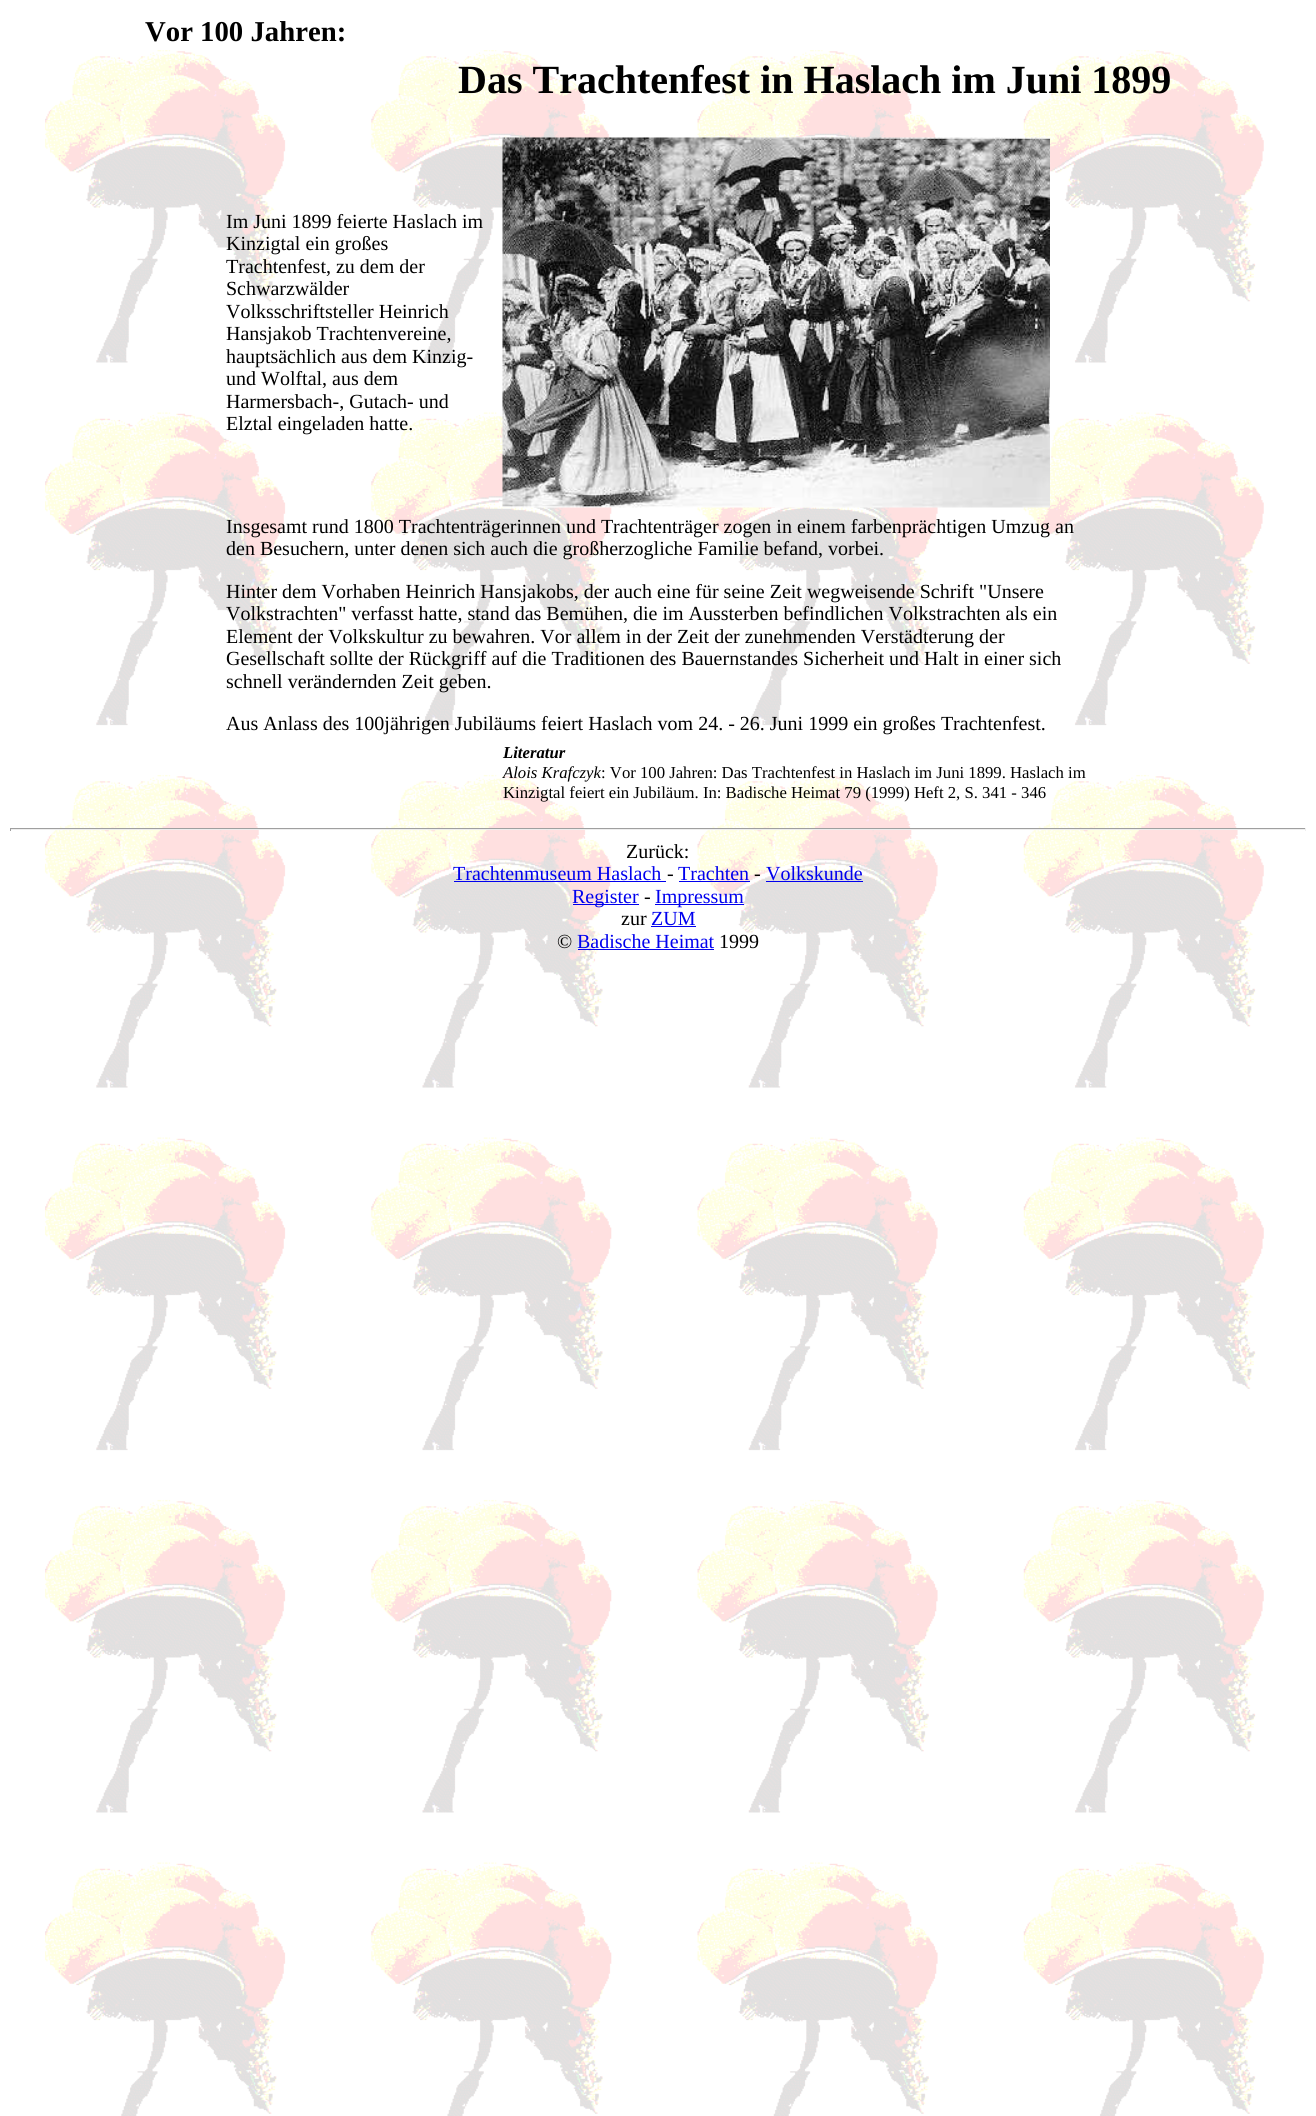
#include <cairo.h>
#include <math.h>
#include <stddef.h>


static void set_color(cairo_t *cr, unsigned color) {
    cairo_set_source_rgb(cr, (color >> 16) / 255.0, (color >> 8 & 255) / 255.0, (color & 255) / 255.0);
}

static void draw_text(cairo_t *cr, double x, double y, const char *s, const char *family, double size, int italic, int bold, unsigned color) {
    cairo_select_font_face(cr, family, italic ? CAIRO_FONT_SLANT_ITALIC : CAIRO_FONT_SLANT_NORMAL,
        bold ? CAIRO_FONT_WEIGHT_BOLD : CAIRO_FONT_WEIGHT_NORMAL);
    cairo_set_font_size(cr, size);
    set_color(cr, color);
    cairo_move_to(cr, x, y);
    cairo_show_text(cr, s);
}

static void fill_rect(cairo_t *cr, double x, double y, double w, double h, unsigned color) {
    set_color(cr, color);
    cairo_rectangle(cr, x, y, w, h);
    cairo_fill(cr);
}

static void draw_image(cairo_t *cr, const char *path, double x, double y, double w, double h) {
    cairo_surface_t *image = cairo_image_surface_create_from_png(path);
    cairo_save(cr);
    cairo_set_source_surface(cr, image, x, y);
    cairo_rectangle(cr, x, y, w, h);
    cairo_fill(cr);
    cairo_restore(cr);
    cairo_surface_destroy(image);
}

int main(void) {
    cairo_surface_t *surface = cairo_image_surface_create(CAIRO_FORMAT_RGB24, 1316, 2116);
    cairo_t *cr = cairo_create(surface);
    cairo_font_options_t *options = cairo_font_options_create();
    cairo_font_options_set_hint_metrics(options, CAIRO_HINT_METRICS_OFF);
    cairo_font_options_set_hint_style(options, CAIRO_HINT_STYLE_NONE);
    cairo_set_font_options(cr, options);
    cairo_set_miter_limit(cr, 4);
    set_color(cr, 0xFFFFFF);
    cairo_paint(cr);
    draw_image(cr, "assets/img1.png", 45, 50, 1219, 2066);
    draw_text(cr, 145, 41, "Vor 100 Jahren:", "Liberation Serif", 28.75, 0, 1, 0x000000);
    draw_text(cr, 458, 93, "Das Trachtenfest in Haslach im Juni 1899", "Liberation Serif", 40, 0, 1, 0x000000);
    draw_text(cr, 226, 228, "Im Juni 1899 feierte Haslach im", "Liberation Serif", 20, 0, 0, 0x000000);
    draw_text(cr, 226, 250, "Kinzigtal ein großes", "Liberation Serif", 20, 0, 0, 0x000000);
    draw_text(cr, 226, 273, "Trachtenfest, zu dem der", "Liberation Serif", 20, 0, 0, 0x000000);
    draw_text(cr, 226, 295, "Schwarzwälder", "Liberation Serif", 20, 0, 0, 0x000000);
    draw_text(cr, 226, 318, "Volksschriftsteller Heinrich", "Liberation Serif", 20, 0, 0, 0x000000);
    draw_text(cr, 226, 340, "Hansjakob Trachtenvereine,", "Liberation Serif", 20, 0, 0, 0x000000);
    draw_text(cr, 226, 363, "hauptsächlich aus dem Kinzig-", "Liberation Serif", 20, 0, 0, 0x000000);
    draw_text(cr, 226, 385, "und Wolftal, aus dem", "Liberation Serif", 20, 0, 0, 0x000000);
    draw_text(cr, 226, 408, "Harmersbach-, Gutach- und", "Liberation Serif", 20, 0, 0, 0x000000);
    draw_text(cr, 226, 430, "Elztal eingeladen hatte.", "Liberation Serif", 20, 0, 0, 0x000000);
    draw_image(cr, "assets/img2.png", 502, 137, 548, 371);
    draw_text(cr, 226, 533, "Insgesamt rund 1800 Trachtenträgerinnen und Trachtenträger zogen in einem farbenprächtigen Umzug an", "Liberation Serif", 20, 0, 0, 0x000000);
    draw_text(cr, 226, 555, "den Besuchern, unter denen sich auch die großherzogliche Familie befand, vorbei.", "Liberation Serif", 20, 0, 0, 0x000000);
    draw_text(cr, 226, 598, "Hinter dem Vorhaben Heinrich Hansjakobs, der auch eine für seine Zeit wegweisende Schrift \"Unsere", "Liberation Serif", 20, 0, 0, 0x000000);
    draw_text(cr, 226, 620, "Volkstrachten\" verfasst hatte, stand das Bemühen, die im Aussterben befindlichen Volkstrachten als ein", "Liberation Serif", 20, 0, 0, 0x000000);
    draw_text(cr, 226, 643, "Element der Volkskultur zu bewahren. Vor allem in der Zeit der zunehmenden Verstädterung der", "Liberation Serif", 20, 0, 0, 0x000000);
    draw_text(cr, 226, 665, "Gesellschaft sollte der Rückgriff auf die Traditionen des Bauernstandes Sicherheit und Halt in einer sich", "Liberation Serif", 20, 0, 0, 0x000000);
    draw_text(cr, 226, 688, "schnell verändernden Zeit geben.", "Liberation Serif", 20, 0, 0, 0x000000);
    draw_text(cr, 226, 730, "Aus Anlass des 100jährigen Jubiläums feiert Haslach vom 24. - 26. Juni 1999 ein großes Trachtenfest.", "Liberation Serif", 20, 0, 0, 0x000000);
    draw_text(cr, 503, 758, "Literatur", "Liberation Serif", 16.7, 1, 1, 0x000000);
    draw_text(cr, 503, 778, "Alois Krafczyk", "Liberation Serif", 16.7, 1, 0, 0x000000);
    draw_text(cr, 601, 778, ": Vor 100 Jahren: Das Trachtenfest in Haslach im Juni 1899. Haslach im", "Liberation Serif", 16.7, 0, 0, 0x000000);
    draw_text(cr, 503, 798, "Kinzigtal feiert ein Jubiläum. In: Badische Heimat 79 (1999) Heft 2, S. 341 - 346", "Liberation Serif", 16.7, 0, 0, 0x000000);
    fill_rect(cr, 10, 828, 1296, 1, 0x9F9F9F);
    fill_rect(cr, 1305, 828, 1, 3, 0xEEEEEE);
    fill_rect(cr, 10, 829, 1296, 1, 0xEEEEEE);
    fill_rect(cr, 10, 828, 1, 3, 0x9F9F9F);
    draw_text(cr, 626, 858, "Zurück:", "Liberation Serif", 20, 0, 0, 0x000000);
    draw_text(cr, 453, 880, "Trachtenmuseum Haslach", "Liberation Serif", 20, 0, 0, 0x0000EE);
    fill_rect(cr, 454, 881, 212, 1, 0x0000EE);
    draw_text(cr, 667, 880, "-", "Liberation Serif", 20, 0, 0, 0x000000);
    draw_text(cr, 678, 880, "Trachten", "Liberation Serif", 20, 0, 0, 0x0000EE);
    fill_rect(cr, 679, 881, 71, 1, 0x0000EE);
    draw_text(cr, 754, 880, "-", "Liberation Serif", 20, 0, 0, 0x000000);
    draw_text(cr, 766, 880, "Volkskunde", "Liberation Serif", 20, 0, 0, 0x0000EE);
    fill_rect(cr, 766, 881, 97, 1, 0x0000EE);
    fill_rect(cr, 573, 904, 66, 1, 0x0000EE);
    draw_text(cr, 572, 903, "Register", "Liberation Serif", 20, 0, 0, 0x0000EE);
    draw_text(cr, 644, 903, "-", "Liberation Serif", 20, 0, 0, 0x000000);
    fill_rect(cr, 655, 904, 89, 1, 0x0000EE);
    draw_text(cr, 655, 903, "Impressum", "Liberation Serif", 20, 0, 0, 0x0000EE);
    draw_text(cr, 621, 925, "zur", "Liberation Serif", 20, 0, 0, 0x000000);
    draw_text(cr, 651, 925, "ZUM", "Liberation Serif", 20, 0, 0, 0x0000EE);
    fill_rect(cr, 651, 926, 45, 1, 0x0000EE);
    draw_text(cr, 557, 948, "©", "Liberation Serif", 20, 0, 0, 0x000000);
    draw_text(cr, 577, 948, "Badische Heimat", "Liberation Serif", 20, 0, 0, 0x0000EE);
    fill_rect(cr, 578, 949, 136, 1, 0x0000EE);
    draw_text(cr, 719, 948, "1999", "Liberation Serif", 20, 0, 0, 0x000000);
    cairo_surface_write_to_png(surface, "output.png");
    cairo_font_options_destroy(options);
    cairo_destroy(cr);
    cairo_surface_destroy(surface);
    return 0;
}
